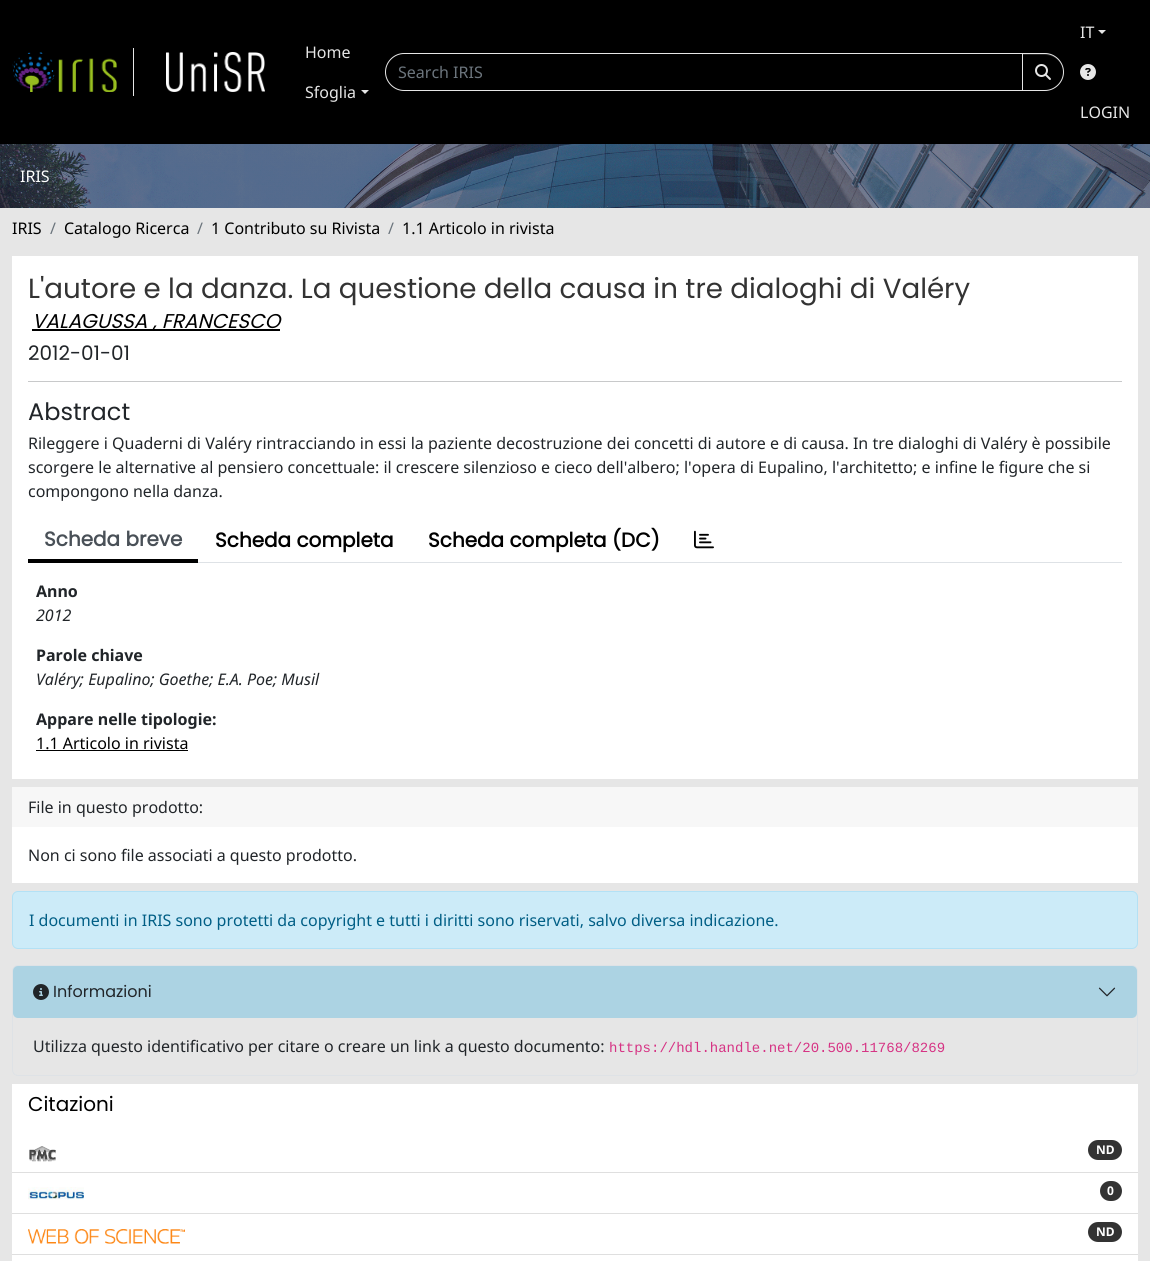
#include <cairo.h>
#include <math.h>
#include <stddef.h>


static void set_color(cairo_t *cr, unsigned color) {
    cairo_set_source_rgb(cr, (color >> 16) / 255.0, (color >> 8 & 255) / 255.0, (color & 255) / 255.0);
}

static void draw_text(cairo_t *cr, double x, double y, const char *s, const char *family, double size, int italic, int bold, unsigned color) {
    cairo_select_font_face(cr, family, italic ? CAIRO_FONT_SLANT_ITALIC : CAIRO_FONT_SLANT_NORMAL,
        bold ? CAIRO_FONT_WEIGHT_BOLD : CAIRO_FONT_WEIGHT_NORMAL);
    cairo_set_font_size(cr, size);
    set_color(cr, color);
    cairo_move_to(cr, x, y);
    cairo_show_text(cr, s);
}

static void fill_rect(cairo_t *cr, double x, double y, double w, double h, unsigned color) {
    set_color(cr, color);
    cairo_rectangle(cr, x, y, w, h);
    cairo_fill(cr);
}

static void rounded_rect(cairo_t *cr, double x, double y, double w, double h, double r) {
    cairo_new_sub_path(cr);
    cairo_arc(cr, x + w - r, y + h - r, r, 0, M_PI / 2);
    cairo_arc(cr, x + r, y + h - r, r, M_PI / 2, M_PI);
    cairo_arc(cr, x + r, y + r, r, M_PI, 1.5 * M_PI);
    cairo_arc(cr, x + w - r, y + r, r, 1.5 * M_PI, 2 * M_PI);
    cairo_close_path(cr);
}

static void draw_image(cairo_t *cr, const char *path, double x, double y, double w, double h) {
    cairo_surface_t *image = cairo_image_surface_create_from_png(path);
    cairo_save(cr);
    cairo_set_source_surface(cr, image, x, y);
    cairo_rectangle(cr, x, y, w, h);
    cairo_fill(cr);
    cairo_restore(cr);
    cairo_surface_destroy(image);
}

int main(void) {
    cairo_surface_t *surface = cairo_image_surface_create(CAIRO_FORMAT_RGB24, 1150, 1261);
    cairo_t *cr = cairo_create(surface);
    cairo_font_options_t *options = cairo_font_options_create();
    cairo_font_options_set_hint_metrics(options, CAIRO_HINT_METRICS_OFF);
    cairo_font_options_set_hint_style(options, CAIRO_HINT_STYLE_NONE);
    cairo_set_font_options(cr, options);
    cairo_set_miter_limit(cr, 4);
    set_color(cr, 0xE6E6E6);
    cairo_paint(cr);
    fill_rect(cr, 0, 0, 1150, 144, 0x000000);
    fill_rect(cr, 133, 48, 1, 48, 0xE6E6E6);
    draw_image(cr, "assets/img1.png", 12, 52, 105, 40);
    draw_image(cr, "assets/img2.png", 166, 52, 99, 40);
    draw_text(cr, 305, 58, "Home", "Noto Sans", 16, 0, 0, 0xE6E6E6);
    draw_text(cr, 305, 98, "Sfoglia", "Noto Sans", 16, 0, 0, 0xE6E6E6);
    cairo_new_path(cr);
    cairo_move_to(cr, 361, 90);
    cairo_line_to(cr, 369, 90);
    cairo_line_to(cr, 365, 94);
    cairo_close_path(cr);
    cairo_fill(cr);
    cairo_new_path(cr);
    cairo_move_to(cr, 404, 53.5);
    cairo_line_to(cr, 1022.5, 53.5);
    cairo_line_to(cr, 1022.5, 90.5);
    cairo_line_to(cr, 404, 90.5);
    cairo_curve_to(cr, 394, 90.5, 385.5, 82, 385.5, 72);
    cairo_curve_to(cr, 385.5, 62, 394, 53.5, 404, 53.5);
    cairo_close_path(cr);
    cairo_set_line_width(cr, 1);
    cairo_stroke(cr);
    draw_text(cr, 398, 78, "Search IRIS", "Noto Sans", 16, 0, 0, 0x6C757D);
    set_color(cr, 0x000000);
    cairo_new_path(cr);
    cairo_move_to(cr, 1022, 53);
    cairo_line_to(cr, 1045, 53);
    cairo_curve_to(cr, 1055.5, 53, 1064, 61.5, 1064, 72);
    cairo_curve_to(cr, 1064, 82.5, 1055.5, 91, 1045, 91);
    cairo_line_to(cr, 1022, 91);
    cairo_close_path(cr);
    cairo_fill(cr);
    set_color(cr, 0x262626);
    cairo_new_path(cr);
    cairo_move_to(cr, 1023, 55);
    cairo_line_to(cr, 1045, 55);
    cairo_curve_to(cr, 1055, 55, 1063, 63, 1063, 72);
    cairo_curve_to(cr, 1063, 64, 1057, 56, 1049, 54);
    cairo_line_to(cr, 1023, 54);
    cairo_close_path(cr);
    cairo_fill(cr);
    cairo_new_path(cr);
    cairo_move_to(cr, 1022.5, 53.5);
    cairo_line_to(cr, 1045, 53.5);
    cairo_curve_to(cr, 1055, 53.5, 1063.5, 62, 1063.5, 72);
    cairo_curve_to(cr, 1063.5, 82, 1055, 90.5, 1045, 90.5);
    cairo_line_to(cr, 1022.5, 90.5);
    cairo_close_path(cr);
    set_color(cr, 0xE6E6E6);
    cairo_stroke(cr);
    draw_image(cr, "assets/img3.png", 1035, 64, 16, 16);
    draw_text(cr, 1080, 38, "IT", "Noto Sans", 16, 0, 0, 0xE6E6E6);
    cairo_new_path(cr);
    cairo_move_to(cr, 1098, 30);
    cairo_line_to(cr, 1106, 30);
    cairo_line_to(cr, 1102, 34);
    cairo_close_path(cr);
    cairo_fill(cr);
    draw_image(cr, "assets/img4.png", 1080, 64, 16, 16);
    draw_text(cr, 1080, 118, "LOGIN", "Noto Sans", 16, 0, 0, 0xE6E6E6);
    draw_image(cr, "assets/img5.png", 0, 144, 1150, 64);
    draw_text(cr, 20, 182, "IRIS", "Noto Sans", 16, 0, 0, 0xFFFFFF);
    draw_text(cr, 12, 234, "IRIS", "Noto Sans", 16, 0, 0, 0x000000);
    draw_text(cr, 50, 234, "/", "Noto Sans", 16, 0, 0, 0x6C757D);
    draw_text(cr, 64, 234, "Catalogo Ricerca", "Noto Sans", 16, 0, 0, 0x000000);
    draw_text(cr, 197, 234, "/", "Noto Sans", 16, 0, 0, 0x6C757D);
    draw_text(cr, 211, 234, "1 Contributo su Rivista", "Noto Sans", 16, 0, 0, 0x000000);
    draw_text(cr, 388, 234, "/", "Noto Sans", 16, 0, 0, 0x6C757D);
    draw_text(cr, 402, 234, "1.1 Articolo in rivista", "Noto Sans", 16, 0, 0, 0x000000);
    fill_rect(cr, 12, 256, 1126, 523, 0xFFFFFF);
    draw_text(cr, 28, 298, "L'autore e la danza. La questione della causa in tre dialoghi di Valéry", "Poppins", 27.7, 0, 0, 0x333333);
    fill_rect(cr, 32, 329, 248, 2, 0x000000);
    draw_text(cr, 32, 328, "VALAGUSSA , FRANCESCO", "Poppins", 20, 1, 0, 0x000000);
    draw_text(cr, 28, 360, "2012-01-01", "Poppins", 20, 0, 0, 0x212529);
    fill_rect(cr, 28, 381, 1094, 1, 0xC8C9CA);
    draw_text(cr, 28, 420, "Abstract", "Poppins", 24, 0, 0, 0x212529);
    draw_text(cr, 28, 449, "Rileggere i Quaderni di Valéry rintracciando in essi la paziente decostruzione dei concetti di autore e di causa. In tre dialoghi di Valéry è possibile", "Noto Sans", 16, 0, 0, 0x212529);
    draw_text(cr, 28, 473, "scorgere le alternative al pensiero concettuale: il crescere silenzioso e cieco dell'albero; l'opera di Eupalino, l'architetto; e infine le figure che si", "Noto Sans", 16, 0, 0, 0x212529);
    draw_text(cr, 28, 497, "compongono nella danza.", "Noto Sans", 16, 0, 0, 0x212529);
    fill_rect(cr, 198, 562, 924, 1, 0xDEE2E6);
    fill_rect(cr, 28, 559, 170, 4, 0x000000);
    draw_text(cr, 44, 546, "Scheda breve", "Poppins", 20, 0, 1, 0x495057);
    draw_text(cr, 215, 547, "Scheda completa", "Poppins", 20, 0, 1, 0x000000);
    draw_text(cr, 428, 547, "Scheda completa (DC)", "Poppins", 20, 0, 1, 0x000000);
    draw_image(cr, "assets/img6.png", 694, 530, 20, 19);
    draw_text(cr, 36, 597, "Anno", "Noto Sans", 16, 0, 1, 0x212529);
    draw_text(cr, 36, 621, "2012", "Noto Sans", 16, 1, 0, 0x212529);
    draw_text(cr, 36, 661, "Parole chiave", "Noto Sans", 16, 0, 1, 0x212529);
    draw_text(cr, 36, 685, "Valéry; Eupalino; Goethe; E.A. Poe; Musil", "Noto Sans", 16, 1, 0, 0x212529);
    draw_text(cr, 36, 725, "Appare nelle tipologie:", "Noto Sans", 16, 0, 1, 0x212529);
    draw_text(cr, 36, 749, "1.1 Articolo in rivista", "Noto Sans", 16, 0, 0, 0x000000);
    fill_rect(cr, 36, 750, 152, 1, 0x000000);
    fill_rect(cr, 12, 827, 1126, 56, 0xFFFFFF);
    fill_rect(cr, 12, 787, 1126, 40, 0xF7F7F7);
    draw_text(cr, 28, 813, "File in questo prodotto:", "Noto Sans", 16, 0, 0, 0x212529);
    draw_text(cr, 28, 861, "Non ci sono file associati a questo prodotto.", "Noto Sans", 16, 0, 0, 0x212529);
    set_color(cr, 0xCCEBF8);
    rounded_rect(cr, 12.5, 891.5, 1125, 57, 5.5);
    cairo_fill_preserve(cr);
    set_color(cr, 0xB3E1F5);
    cairo_stroke(cr);
    draw_text(cr, 29, 926, "I documenti in IRIS sono protetti da copyright e tutti i diritti sono riservati, salvo diversa indicazione.", "Noto Sans", 16, 0, 0, 0x005E85);
    rounded_rect(cr, 12.5, 965.5, 1125, 110, 5.5);
    set_color(cr, 0xDEE2E6);
    cairo_stroke(cr);
    cairo_set_source_rgba(cr, 0, 0.612, 0.871, 0.25);
    rounded_rect(cr, 13, 966, 1124, 52, 5);
    cairo_fill(cr);
    draw_image(cr, "assets/img7.png", 33, 984, 16, 16);
    draw_text(cr, 53, 997, "Informazioni", "Poppins", 16, 0, 0, 0x212529);
    draw_image(cr, "assets/img8.png", 1098, 987, 18, 10);
    draw_text(cr, 33, 1052, "Utilizza questo identificativo per citare o creare un link a questo documento:", "Noto Sans", 16, 0, 0, 0x212529);
    draw_text(cr, 609, 1052, "https://hdl.handle.net/20.500.11768/8269", "Liberation Mono", 14, 0, 0, 0xD63384);
    fill_rect(cr, 12, 1084, 1126, 177, 0xFFFFFF);
    draw_text(cr, 28, 1111, "Citazioni", "Poppins", 20, 0, 0, 0x000000);
    fill_rect(cr, 12, 1172, 1126, 1, 0xDFDFDF);
    draw_image(cr, "assets/img9.png", 29, 1146, 27, 16);
    set_color(cr, 0x333333);
    rounded_rect(cr, 1088, 1140, 34, 20, 10);
    cairo_fill(cr);
    draw_text(cr, 1096, 1154, "ND", "Noto Sans", 12, 0, 1, 0xFFFFFF);
    fill_rect(cr, 12, 1213, 1126, 1, 0xDFDFDF);
    draw_image(cr, "assets/img10.png", 28, 1187, 56, 13);
    set_color(cr, 0x333333);
    rounded_rect(cr, 1100, 1181, 22, 20, 10);
    cairo_fill(cr);
    draw_text(cr, 1107, 1195, "0", "Noto Sans", 12, 0, 1, 0xFFFFFF);
    fill_rect(cr, 12, 1254, 1126, 1, 0xDFDFDF);
    draw_image(cr, "assets/img11.png", 28, 1229, 157, 15);
    set_color(cr, 0x333333);
    rounded_rect(cr, 1088, 1222, 34, 20, 10);
    cairo_fill(cr);
    draw_text(cr, 1096, 1236, "ND", "Noto Sans", 12, 0, 1, 0xFFFFFF);
    cairo_surface_write_to_png(surface, "output.png");
    cairo_font_options_destroy(options);
    cairo_destroy(cr);
    cairo_surface_destroy(surface);
    return 0;
}
